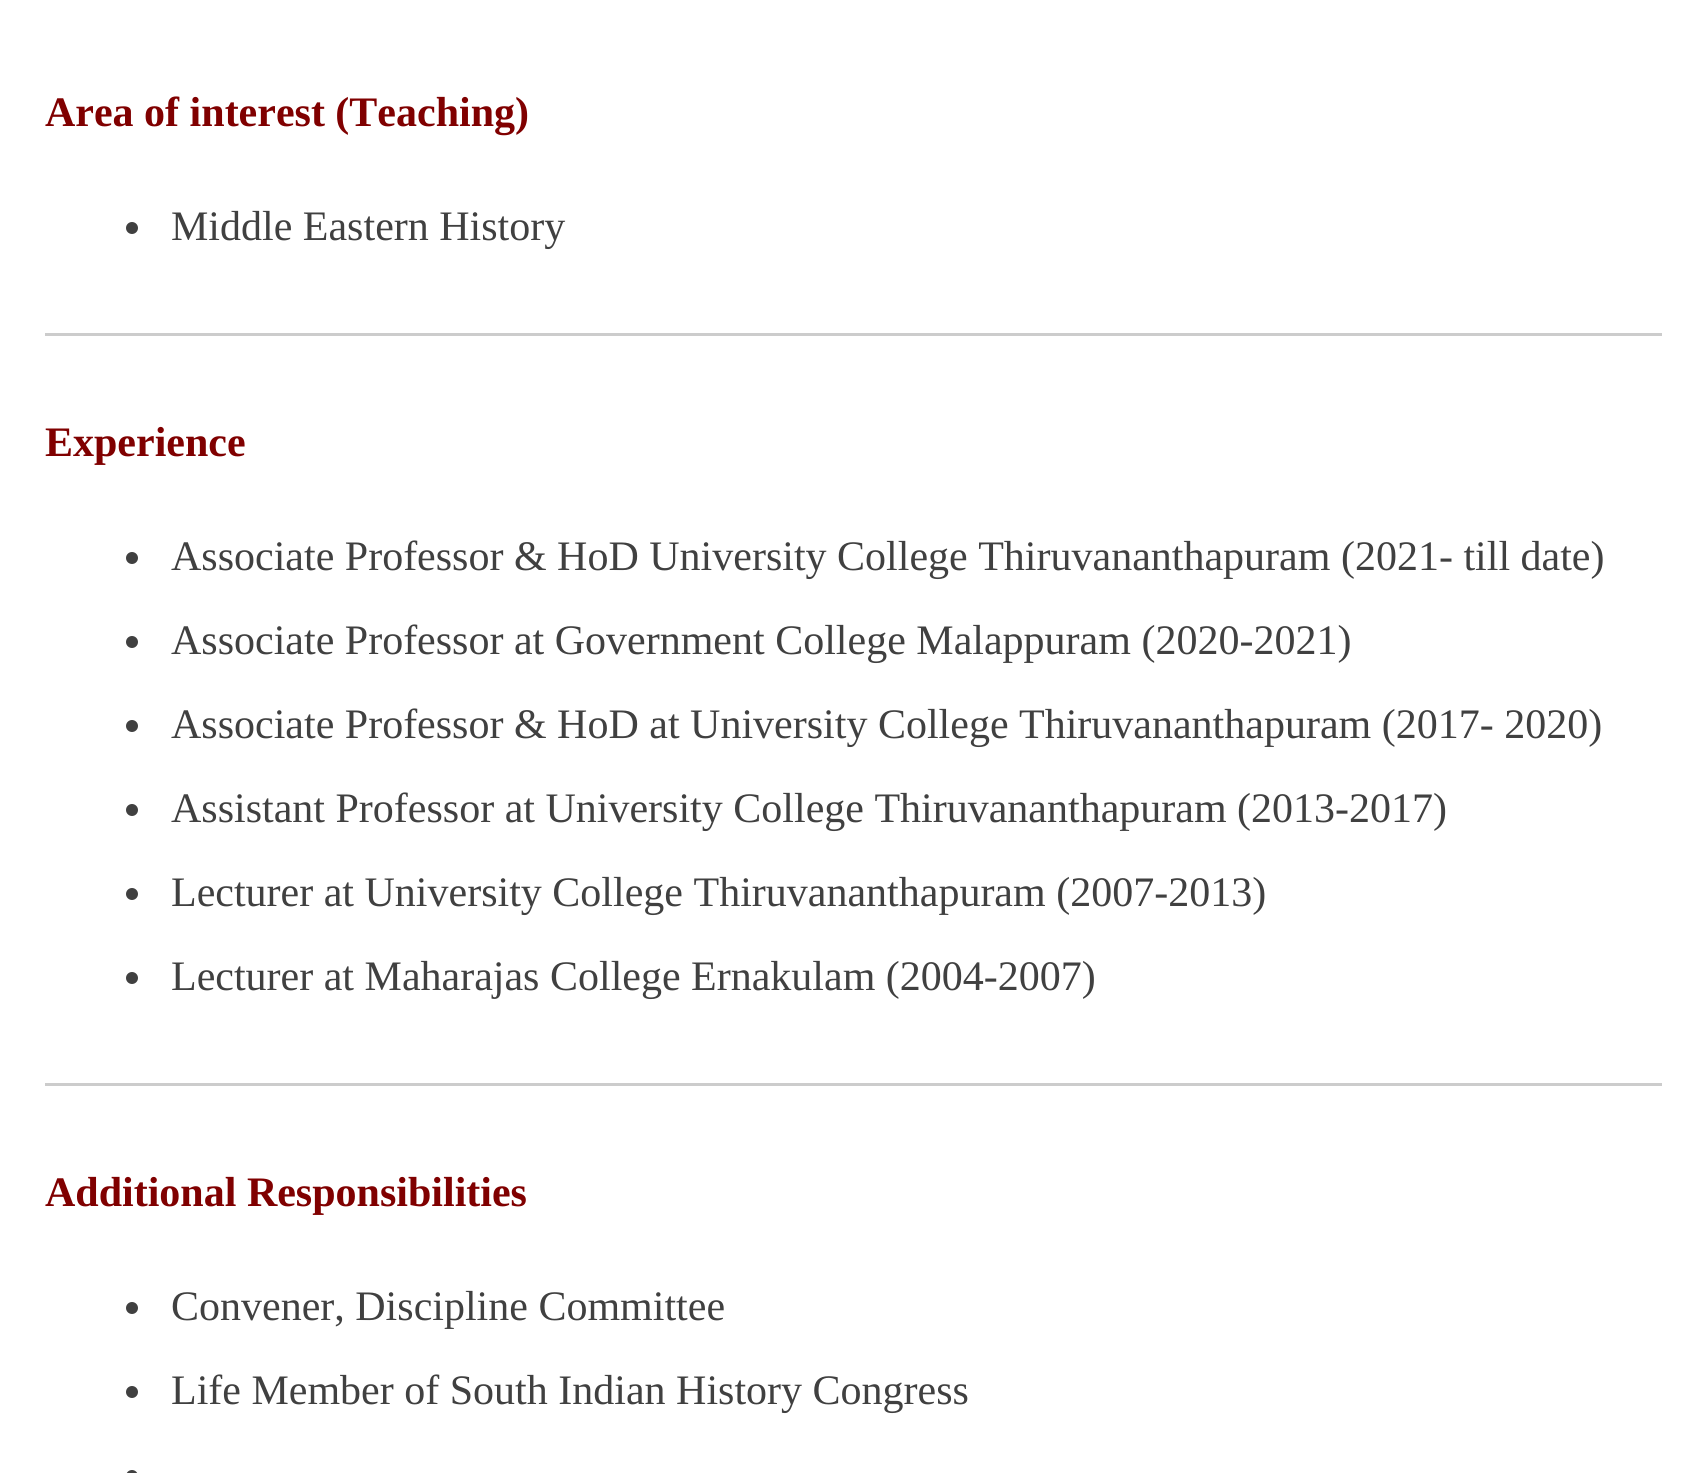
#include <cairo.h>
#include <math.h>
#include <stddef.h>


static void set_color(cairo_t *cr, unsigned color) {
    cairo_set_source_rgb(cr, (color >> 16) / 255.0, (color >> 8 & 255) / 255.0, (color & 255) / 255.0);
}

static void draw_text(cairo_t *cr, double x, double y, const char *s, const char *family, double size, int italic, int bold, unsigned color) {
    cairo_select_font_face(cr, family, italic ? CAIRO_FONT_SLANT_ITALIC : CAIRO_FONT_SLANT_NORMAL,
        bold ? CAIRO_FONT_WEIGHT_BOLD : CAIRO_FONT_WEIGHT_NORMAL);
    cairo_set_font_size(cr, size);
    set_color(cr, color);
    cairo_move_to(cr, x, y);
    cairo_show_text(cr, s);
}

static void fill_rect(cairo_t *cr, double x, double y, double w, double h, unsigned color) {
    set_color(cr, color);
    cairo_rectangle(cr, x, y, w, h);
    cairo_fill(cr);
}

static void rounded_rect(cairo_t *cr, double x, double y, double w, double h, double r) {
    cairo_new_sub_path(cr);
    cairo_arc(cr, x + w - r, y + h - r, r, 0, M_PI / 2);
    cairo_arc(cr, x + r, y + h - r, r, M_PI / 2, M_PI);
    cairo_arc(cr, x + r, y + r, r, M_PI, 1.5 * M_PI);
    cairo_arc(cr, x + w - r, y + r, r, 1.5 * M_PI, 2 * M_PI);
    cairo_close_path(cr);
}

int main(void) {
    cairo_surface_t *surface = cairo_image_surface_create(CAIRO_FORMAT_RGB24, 1706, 1473);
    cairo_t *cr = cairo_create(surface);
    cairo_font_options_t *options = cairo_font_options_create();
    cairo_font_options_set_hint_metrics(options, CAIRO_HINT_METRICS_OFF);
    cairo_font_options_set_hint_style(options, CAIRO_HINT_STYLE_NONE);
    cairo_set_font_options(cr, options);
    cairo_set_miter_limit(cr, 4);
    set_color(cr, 0xFFFFFF);
    cairo_paint(cr);
    draw_text(cr, 45, 126, "Area of interest (Teaching)", "Liberation Serif", 42, 0, 1, 0x800000);
    set_color(cr, 0x404040);
    cairo_new_path(cr);
    cairo_arc(cr, 132, 228, 6, 0, 2 * M_PI);
    cairo_fill(cr);
    draw_text(cr, 171, 240, "Middle Eastern History", "Liberation Serif", 42, 0, 0, 0x404040);
    fill_rect(cr, 45, 333, 1617, 3, 0xCCCCCC);
    draw_text(cr, 45, 456, "Experience", "Liberation Serif", 42, 0, 1, 0x800000);
    set_color(cr, 0x404040);
    cairo_new_path(cr);
    cairo_arc(cr, 132, 558, 6, 0, 2 * M_PI);
    cairo_fill(cr);
    draw_text(cr, 171, 570, "Associate Professor & HoD University College Thiruvananthapuram (2021- till date)", "Liberation Serif", 42, 0, 0, 0x404040);
    cairo_new_path(cr);
    cairo_arc(cr, 132, 642, 6, 0, 2 * M_PI);
    cairo_fill(cr);
    draw_text(cr, 171, 654, "Associate Professor at Government College Malappuram (2020-2021)", "Liberation Serif", 42, 0, 0, 0x404040);
    cairo_new_path(cr);
    cairo_arc(cr, 132, 726, 6, 0, 2 * M_PI);
    cairo_fill(cr);
    draw_text(cr, 171, 738, "Associate Professor & HoD at University College Thiruvananthapuram (2017- 2020)", "Liberation Serif", 42, 0, 0, 0x404040);
    cairo_new_path(cr);
    cairo_arc(cr, 132, 810, 6, 0, 2 * M_PI);
    cairo_fill(cr);
    draw_text(cr, 171, 822, "Assistant Professor at University College Thiruvananthapuram (2013-2017)", "Liberation Serif", 42, 0, 0, 0x404040);
    cairo_new_path(cr);
    cairo_arc(cr, 132, 894, 6, 0, 2 * M_PI);
    cairo_fill(cr);
    draw_text(cr, 171, 906, "Lecturer at University College Thiruvananthapuram (2007-2013)", "Liberation Serif", 42, 0, 0, 0x404040);
    cairo_new_path(cr);
    cairo_arc(cr, 132, 978, 6, 0, 2 * M_PI);
    cairo_fill(cr);
    draw_text(cr, 171, 990, "Lecturer at Maharajas College Ernakulam (2004-2007)", "Liberation Serif", 42, 0, 0, 0x404040);
    fill_rect(cr, 45, 1083, 1617, 3, 0xCCCCCC);
    draw_text(cr, 45, 1206, "Additional Responsibilities", "Liberation Serif", 42, 0, 1, 0x800000);
    set_color(cr, 0x404040);
    cairo_new_path(cr);
    cairo_arc(cr, 132, 1308, 6, 0, 2 * M_PI);
    cairo_fill(cr);
    draw_text(cr, 171, 1320, "Convener, Discipline Committee", "Liberation Serif", 42, 0, 0, 0x404040);
    cairo_new_path(cr);
    cairo_arc(cr, 132, 1392, 6, 0, 2 * M_PI);
    cairo_fill(cr);
    draw_text(cr, 171, 1404, "Life Member of South Indian History Congress", "Liberation Serif", 42, 0, 0, 0x404040);
    rounded_rect(cr, 126, 1470, 12, 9, 6);
    cairo_fill(cr);
    cairo_surface_write_to_png(surface, "output.png");
    cairo_font_options_destroy(options);
    cairo_destroy(cr);
    cairo_surface_destroy(surface);
    return 0;
}
